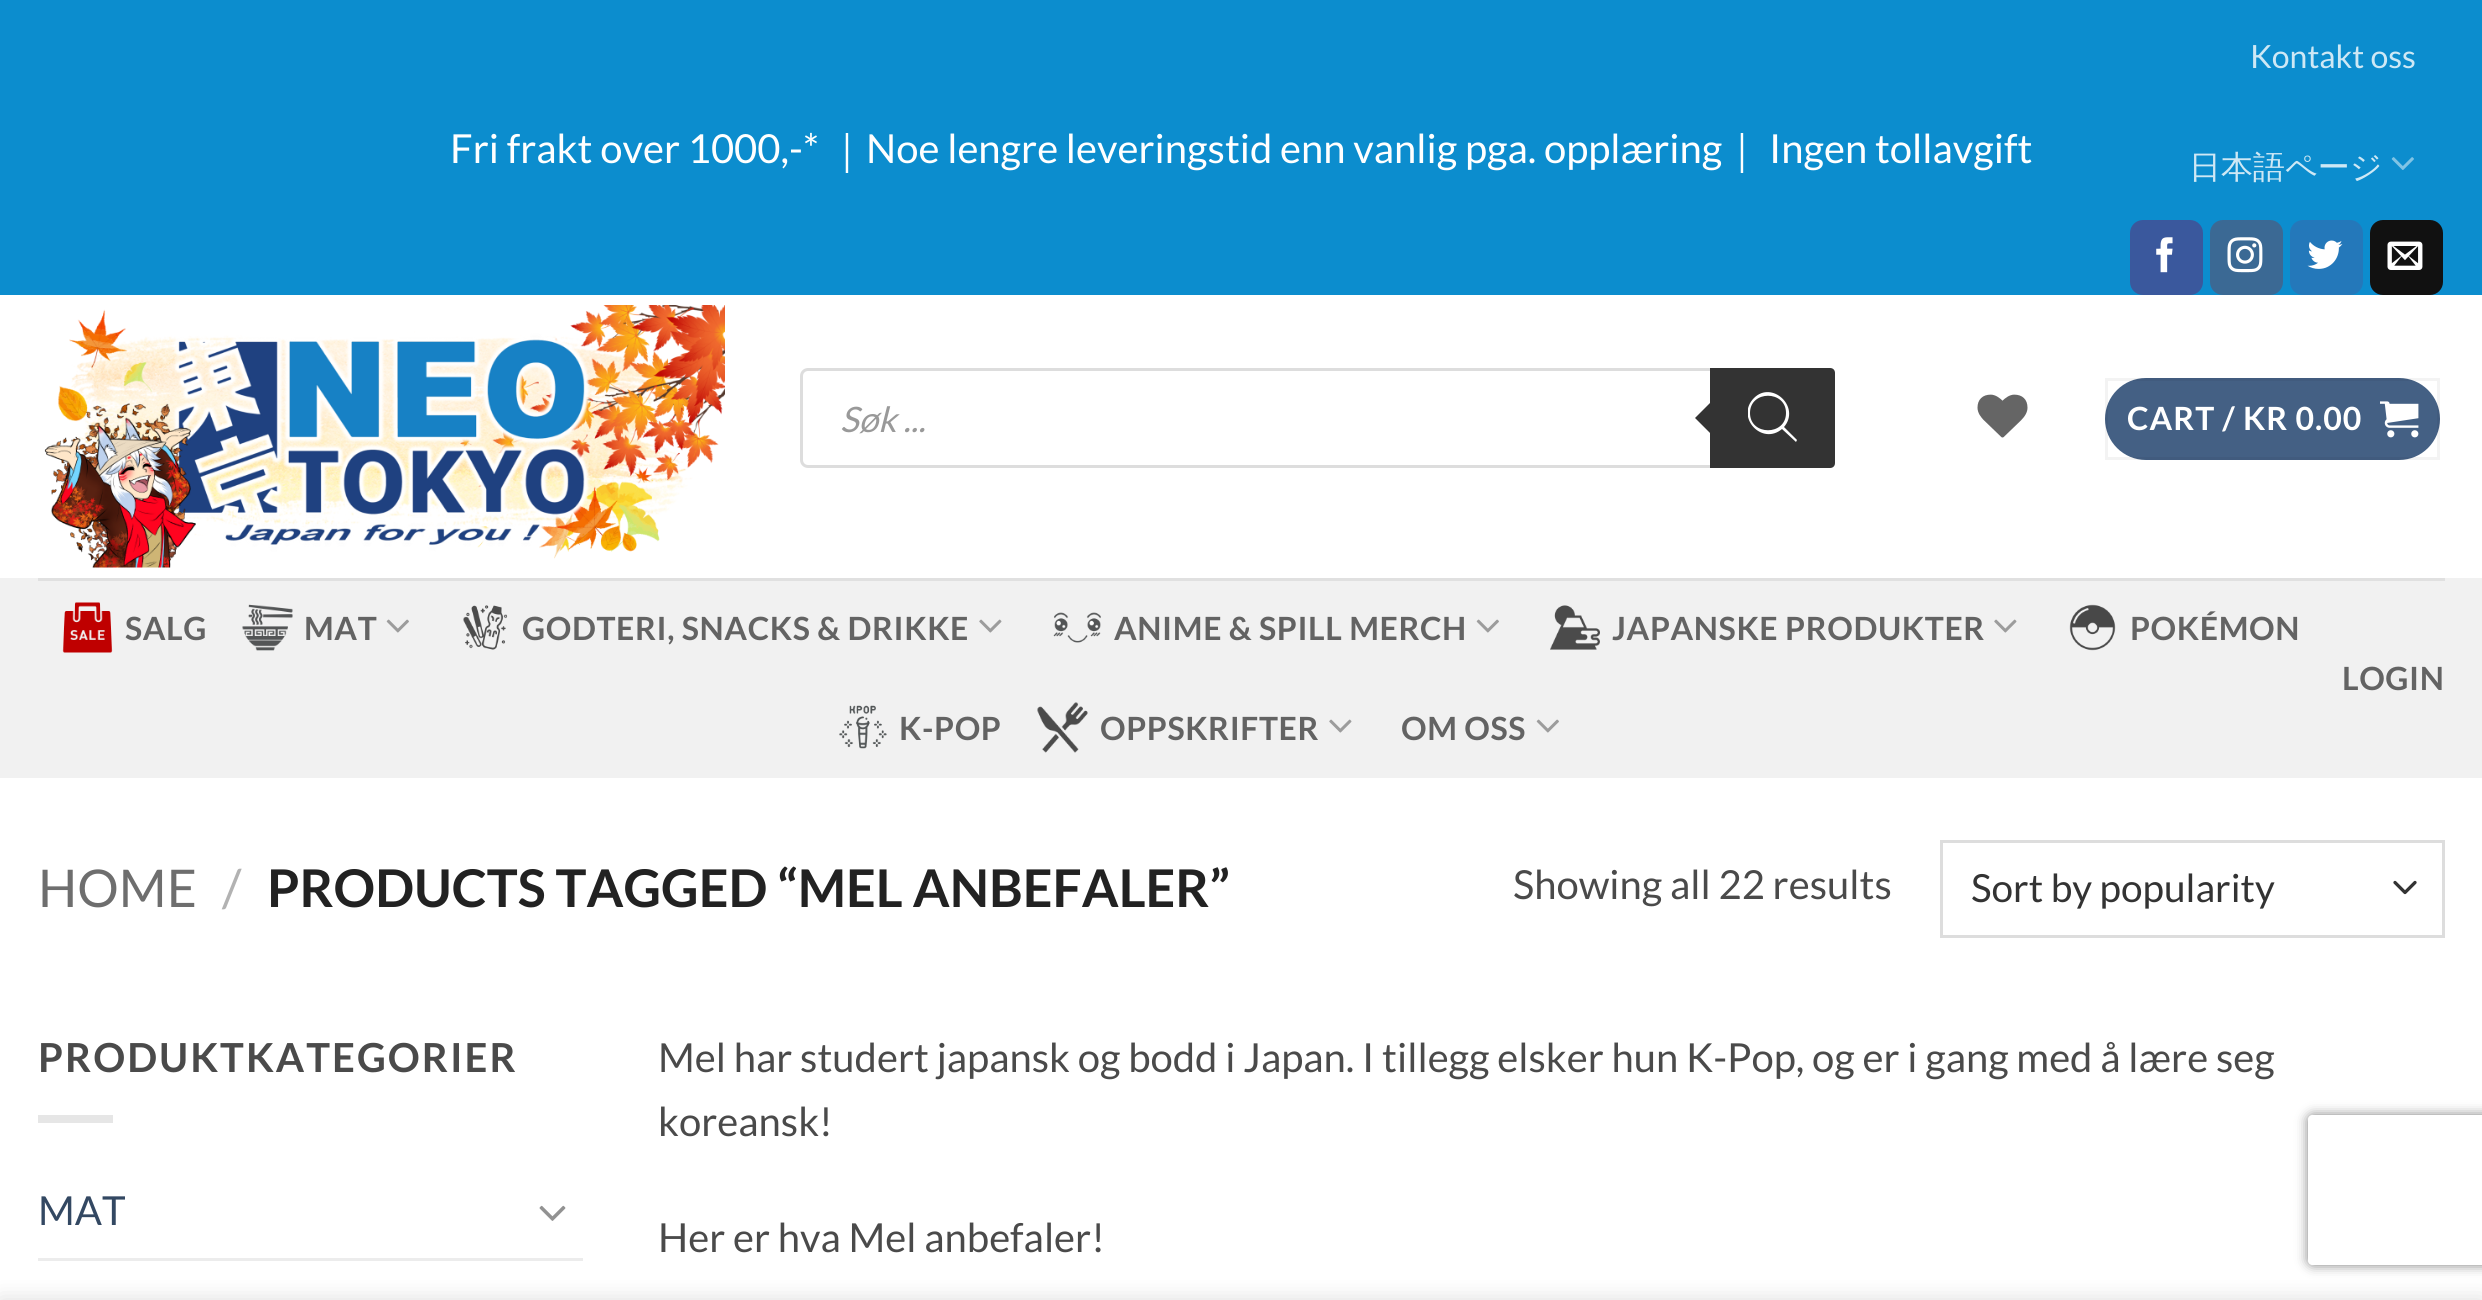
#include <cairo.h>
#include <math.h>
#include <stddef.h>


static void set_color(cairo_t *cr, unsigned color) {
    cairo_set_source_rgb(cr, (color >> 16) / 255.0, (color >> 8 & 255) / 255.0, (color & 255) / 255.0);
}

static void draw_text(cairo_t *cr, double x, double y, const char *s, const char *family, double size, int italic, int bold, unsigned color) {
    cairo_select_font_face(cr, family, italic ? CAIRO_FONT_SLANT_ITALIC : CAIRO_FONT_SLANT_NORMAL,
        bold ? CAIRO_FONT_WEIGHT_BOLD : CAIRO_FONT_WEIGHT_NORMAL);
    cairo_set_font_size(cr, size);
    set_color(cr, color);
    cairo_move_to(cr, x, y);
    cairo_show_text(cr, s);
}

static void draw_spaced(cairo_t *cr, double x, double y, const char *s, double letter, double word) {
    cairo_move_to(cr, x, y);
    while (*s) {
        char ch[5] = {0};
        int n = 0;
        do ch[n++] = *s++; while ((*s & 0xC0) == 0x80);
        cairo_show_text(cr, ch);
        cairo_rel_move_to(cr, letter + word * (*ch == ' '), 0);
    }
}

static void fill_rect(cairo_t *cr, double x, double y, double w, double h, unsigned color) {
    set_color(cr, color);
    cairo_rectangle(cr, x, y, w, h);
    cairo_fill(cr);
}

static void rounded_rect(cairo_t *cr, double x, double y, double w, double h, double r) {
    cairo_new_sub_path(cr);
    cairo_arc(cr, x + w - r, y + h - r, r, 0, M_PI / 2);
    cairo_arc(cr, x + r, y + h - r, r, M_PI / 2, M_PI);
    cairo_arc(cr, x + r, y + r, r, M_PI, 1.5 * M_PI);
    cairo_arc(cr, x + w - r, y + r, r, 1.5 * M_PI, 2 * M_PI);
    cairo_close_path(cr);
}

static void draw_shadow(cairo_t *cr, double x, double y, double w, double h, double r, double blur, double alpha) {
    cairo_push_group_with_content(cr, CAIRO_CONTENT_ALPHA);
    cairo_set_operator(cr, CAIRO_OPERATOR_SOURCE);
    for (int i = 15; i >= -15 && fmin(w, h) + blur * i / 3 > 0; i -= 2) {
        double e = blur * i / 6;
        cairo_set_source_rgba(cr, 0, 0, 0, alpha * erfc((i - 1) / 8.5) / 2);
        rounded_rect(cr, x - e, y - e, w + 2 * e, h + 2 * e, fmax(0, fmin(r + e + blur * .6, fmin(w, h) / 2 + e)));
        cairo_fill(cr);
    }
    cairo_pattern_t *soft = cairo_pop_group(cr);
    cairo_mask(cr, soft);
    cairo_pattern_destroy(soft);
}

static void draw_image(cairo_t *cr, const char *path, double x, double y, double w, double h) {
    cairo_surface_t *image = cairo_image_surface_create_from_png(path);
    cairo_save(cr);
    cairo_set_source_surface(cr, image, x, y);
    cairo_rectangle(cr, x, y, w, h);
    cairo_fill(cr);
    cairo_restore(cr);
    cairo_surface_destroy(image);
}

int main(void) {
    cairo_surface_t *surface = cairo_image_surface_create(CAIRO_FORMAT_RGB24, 2482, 1300);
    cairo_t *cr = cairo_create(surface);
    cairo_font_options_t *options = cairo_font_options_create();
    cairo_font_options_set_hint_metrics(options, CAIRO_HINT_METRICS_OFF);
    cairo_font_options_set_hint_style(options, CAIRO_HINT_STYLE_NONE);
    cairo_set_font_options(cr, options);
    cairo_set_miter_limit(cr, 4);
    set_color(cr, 0xFFFFFF);
    cairo_paint(cr);
    fill_rect(cr, 0, 0, 2482, 295, 0x0C8DCE);
    draw_text(cr, 450, 163, "Fri frakt over 1000,-*", "Lato", 40, 0, 0, 0xFFFFFF);
    draw_text(cr, 827, 163, "｜", "WenQuanYi Zen Hei Medium", 40, 0, 0, 0xFFFFFF);
    draw_text(cr, 866, 163, "Noe lengre leveringstid enn vanlig pga. opplæring", "Lato", 40, 0, 0, 0xFFFFFF);
    draw_text(cr, 1722, 163, "｜", "WenQuanYi Zen Hei Medium", 40, 0, 0, 0xFFFFFF);
    draw_text(cr, 1769, 163, "Ingen tollavgift", "Lato", 40, 0, 0, 0xFFFFFF);
    draw_text(cr, 2250, 68, "Kontakt oss", "Lato", 32, 0, 0, 0xCEE8F5);
    draw_text(cr, 2189, 178, "日本語ページ", "WenQuanYi Zen Hei Medium", 32, 0, 0, 0xCEE8F5);
    draw_image(cr, "assets/img1.png", 2391, 157, 23, 13);
    set_color(cr, 0x3A589D);
    rounded_rect(cr, 2131.5, 221.5, 70, 72, 11.5);
    cairo_fill_preserve(cr);
    cairo_set_line_width(cr, 3);
    cairo_stroke(cr);
    draw_image(cr, "assets/img2.png", 2156, 237, 17, 36);
    set_color(cr, 0x3B6994);
    rounded_rect(cr, 2211.5, 221.5, 70, 72, 11.5);
    cairo_fill_preserve(cr);
    cairo_stroke(cr);
    draw_image(cr, "assets/img3.png", 2227, 237, 36, 36);
    set_color(cr, 0x2478BA);
    rounded_rect(cr, 2291.5, 221.5, 70, 72, 11.5);
    cairo_fill_preserve(cr);
    cairo_stroke(cr);
    draw_image(cr, "assets/img4.png", 2307, 240, 36, 29);
    set_color(cr, 0x111111);
    rounded_rect(cr, 2371.5, 221.5, 70, 72, 11.5);
    cairo_fill_preserve(cr);
    cairo_stroke(cr);
    draw_image(cr, "assets/img5.png", 2387, 241, 36, 29);
    draw_image(cr, "assets/img6.png", 44, 305, 681, 263);
    rounded_rect(cr, 801.5, 369.5, 1032, 97, 6.5);
    set_color(cr, 0xDDDDDD);
    cairo_stroke(cr);
    draw_text(cr, 840, 432, "Søk ...", "Lato", 35, 1, 0, 0x999999);
    set_color(cr, 0x333333);
    cairo_new_path(cr);
    cairo_move_to(cr, 1710, 368);
    cairo_line_to(cr, 1830, 368);
    cairo_curve_to(cr, 1833, 368, 1835, 370, 1835, 373);
    cairo_line_to(cr, 1835, 463);
    cairo_curve_to(cr, 1835, 466, 1833, 468, 1830, 468);
    cairo_line_to(cr, 1710, 468);
    cairo_close_path(cr);
    cairo_fill(cr);
    cairo_new_path(cr);
    cairo_move_to(cr, 1715, 398);
    cairo_line_to(cr, 1715, 438);
    cairo_line_to(cr, 1695, 418);
    cairo_close_path(cr);
    cairo_fill(cr);
    cairo_save(cr);
    cairo_rectangle(cr, 1748, 385, 50, 65);
    cairo_clip(cr);
    set_color(cr, 0xFFFFFF);
    cairo_new_path(cr);
    cairo_move_to(cr, 1797, 440);
    cairo_line_to(cr, 1784, 427);
    cairo_curve_to(cr, 1801, 407, 1772, 380, 1754, 398);
    cairo_curve_to(cr, 1735, 417, 1762, 446, 1782, 429);
    cairo_line_to(cr, 1796, 442);
    cairo_close_path(cr);
    cairo_move_to(cr, 1750, 413);
    cairo_curve_to(cr, 1750, 390, 1786, 390, 1786, 413);
    cairo_curve_to(cr, 1786, 436, 1750, 436, 1750, 413);
    cairo_close_path(cr);
    cairo_fill(cr);
    cairo_restore(cr);
    draw_image(cr, "assets/img7.png", 1977, 394, 51, 44);
    set_color(cr, 0x446084);
    rounded_rect(cr, 2105, 378, 335, 82, 41);
    cairo_fill(cr);
    cairo_rectangle(cr, 2106.5, 379.5, 332, 79);
    cairo_set_source_rgba(cr, 0, 0, 0, 0.05);
    cairo_stroke(cr);
    cairo_select_font_face(cr, "Lato", CAIRO_FONT_SLANT_NORMAL, CAIRO_FONT_WEIGHT_BOLD);
    cairo_set_font_size(cr, 32);
    set_color(cr, 0xFFFFFF);
    draw_spaced(cr, 2127, 430, "CART / KR 0.00", 1, 0);
    draw_image(cr, "assets/img8.png", 2380, 401, 39, 37);
    fill_rect(cr, 0, 578, 2482, 200, 0xF1F1F1);
    fill_rect(cr, 38, 578, 2407, 3, 0xE0E0E0);
    draw_image(cr, "assets/img9.png", 62, 602, 51, 51);
    set_color(cr, 0x636363);
    draw_spaced(cr, 125, 640, "SALG", 0.6, 0);
    draw_image(cr, "assets/img10.png", 242, 604, 51, 47);
    draw_spaced(cr, 304, 640, "MAT", 0.6, 0);
    draw_image(cr, "assets/img11.png", 386, 619, 23, 14);
    draw_image(cr, "assets/img12.png", 463, 605, 45, 45);
    draw_spaced(cr, 522, 640, "GODTERI, SNACKS & DRIKKE", 0.6, 0);
    draw_image(cr, "assets/img13.png", 979, 619, 23, 14);
    draw_image(cr, "assets/img14.png", 1053, 612, 48, 31);
    draw_spaced(cr, 1114, 640, "ANIME & SPILL MERCH", 0.6, 0);
    draw_image(cr, "assets/img11.png", 1476, 619, 23, 14);
    draw_image(cr, "assets/img15.png", 1550, 605, 50, 45);
    draw_spaced(cr, 1612, 640, "JAPANSKE PRODUKTER", 0.6, 0);
    draw_image(cr, "assets/img13.png", 1994, 619, 23, 14);
    draw_image(cr, "assets/img16.png", 2069, 604, 47, 47);
    draw_spaced(cr, 2130, 640, "POKÉMON", 0.6, 0);
    draw_image(cr, "assets/img17.png", 839, 705, 48, 44);
    draw_spaced(cr, 899, 740, "K-POP", 0.6, 0);
    draw_image(cr, "assets/img18.png", 1037, 702, 51, 51);
    draw_spaced(cr, 1100, 740, "OPPSKRIFTER", 0.6, 0);
    draw_image(cr, "assets/img13.png", 1329, 719, 23, 14);
    draw_spaced(cr, 1401, 740, "OM OSS", 0.6, 0);
    draw_image(cr, "assets/img11.png", 1536, 719, 23, 14);
    draw_spaced(cr, 2342, 690, "LOGIN", 0.6, 0);
    draw_text(cr, 38, 907, "HOME", "Lato", 52, 0, 0, 0x6E6E6E);
    draw_text(cr, 222, 907, "/", "Lato", 52, 0, 0, 0xB2B2B2);
    draw_text(cr, 267, 907, "PRODUCTS TAGGED “MEL ANBEFALER”", "Lato", 52, 0, 1, 0x222222);
    draw_text(cr, 1513, 899, "Showing all 22 results", "Lato", 40, 0, 0, 0x4A4A4A);
    cairo_new_path(cr);
    cairo_move_to(cr, 2395, 882.5);
    cairo_line_to(cr, 2405, 892.5);
    cairo_line_to(cr, 2415, 882.5);
    set_color(cr, 0x333333);
    cairo_set_line_width(cr, 3.3);
    cairo_set_line_cap(cr, CAIRO_LINE_CAP_ROUND);
    cairo_set_line_join(cr, CAIRO_LINE_JOIN_ROUND);
    cairo_stroke(cr);
    cairo_rectangle(cr, 1941.5, 841.5, 502, 95);
    set_color(cr, 0xDDDDDD);
    cairo_set_line_width(cr, 3);
    cairo_set_line_cap(cr, CAIRO_LINE_CAP_BUTT);
    cairo_set_line_join(cr, CAIRO_LINE_JOIN_MITER);
    cairo_stroke(cr);
    draw_text(cr, 1971, 902, "Sort by popularity", "Lato", 38.75, 0, 0, 0x333333);
    cairo_select_font_face(cr, "Lato", CAIRO_FONT_SLANT_NORMAL, CAIRO_FONT_WEIGHT_BOLD);
    cairo_set_font_size(cr, 40);
    set_color(cr, 0x4A4A4A);
    draw_spaced(cr, 38, 1072, "PRODUKTKATEGORIER", 2, 0);
    fill_rect(cr, 38, 1115, 75, 8, 0xE6E6E6);
    draw_text(cr, 38, 1225, "MAT", "Lato", 40, 0, 0, 0x334862);
    draw_image(cr, "assets/img19.png", 539, 1205, 27, 16);
    fill_rect(cr, 38, 1258, 545, 3, 0xECECEC);
    draw_text(cr, 658, 1072, "Mel har studert japansk og bodd i Japan. I tillegg elsker hun K-Pop, og er i gang med å lære seg", "Lato", 40, 0, 0, 0x4A4A4A);
    draw_text(cr, 658, 1136, "koreansk!", "Lato", 40, 0, 0, 0x4A4A4A);
    draw_text(cr, 658, 1252, "Her er hva Mel anbefaler!", "Lato", 40, 0, 0, 0x4A4A4A);
    cairo_save(cr);
    cairo_set_fill_rule(cr, CAIRO_FILL_RULE_EVEN_ODD);
    cairo_new_path(cr);
    cairo_move_to(cr, 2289, 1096);
    cairo_line_to(cr, 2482, 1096);
    cairo_line_to(cr, 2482, 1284);
    cairo_line_to(cr, 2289, 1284);
    cairo_close_path(cr);
    cairo_move_to(cr, 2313, 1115);
    cairo_line_to(cr, 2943, 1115);
    cairo_curve_to(cr, 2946, 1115, 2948, 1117, 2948, 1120);
    cairo_line_to(cr, 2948, 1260);
    cairo_curve_to(cr, 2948, 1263, 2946, 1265, 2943, 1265);
    cairo_line_to(cr, 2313, 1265);
    cairo_curve_to(cr, 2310, 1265, 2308, 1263, 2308, 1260);
    cairo_line_to(cr, 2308, 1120);
    cairo_curve_to(cr, 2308, 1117, 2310, 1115, 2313, 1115);
    cairo_close_path(cr);
    cairo_clip(cr);
    set_color(cr, 0x808080);
    draw_shadow(cr, 2308, 1115, 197, 150, 5, 6, 1);
    cairo_restore(cr);
    set_color(cr, 0x000000);
    draw_shadow(cr, 0, 1300, 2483, 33, 0, 11, 0.14);
    cairo_surface_write_to_png(surface, "output.png");
    cairo_font_options_destroy(options);
    cairo_destroy(cr);
    cairo_surface_destroy(surface);
    return 0;
}
